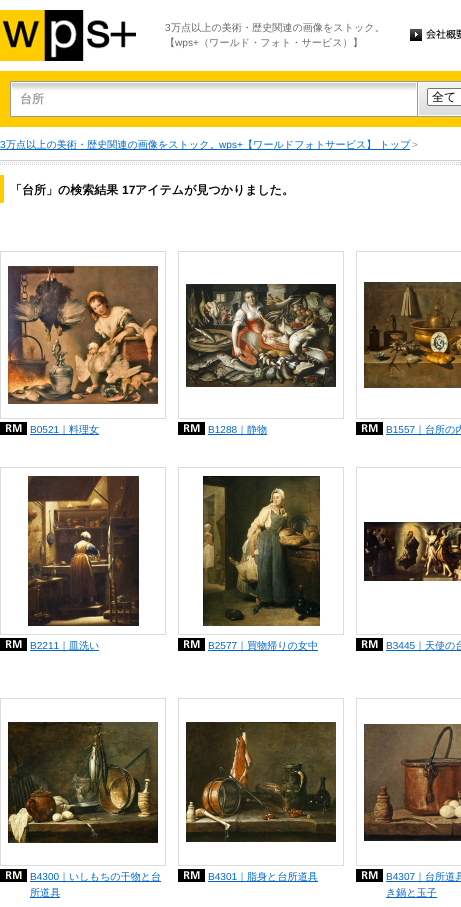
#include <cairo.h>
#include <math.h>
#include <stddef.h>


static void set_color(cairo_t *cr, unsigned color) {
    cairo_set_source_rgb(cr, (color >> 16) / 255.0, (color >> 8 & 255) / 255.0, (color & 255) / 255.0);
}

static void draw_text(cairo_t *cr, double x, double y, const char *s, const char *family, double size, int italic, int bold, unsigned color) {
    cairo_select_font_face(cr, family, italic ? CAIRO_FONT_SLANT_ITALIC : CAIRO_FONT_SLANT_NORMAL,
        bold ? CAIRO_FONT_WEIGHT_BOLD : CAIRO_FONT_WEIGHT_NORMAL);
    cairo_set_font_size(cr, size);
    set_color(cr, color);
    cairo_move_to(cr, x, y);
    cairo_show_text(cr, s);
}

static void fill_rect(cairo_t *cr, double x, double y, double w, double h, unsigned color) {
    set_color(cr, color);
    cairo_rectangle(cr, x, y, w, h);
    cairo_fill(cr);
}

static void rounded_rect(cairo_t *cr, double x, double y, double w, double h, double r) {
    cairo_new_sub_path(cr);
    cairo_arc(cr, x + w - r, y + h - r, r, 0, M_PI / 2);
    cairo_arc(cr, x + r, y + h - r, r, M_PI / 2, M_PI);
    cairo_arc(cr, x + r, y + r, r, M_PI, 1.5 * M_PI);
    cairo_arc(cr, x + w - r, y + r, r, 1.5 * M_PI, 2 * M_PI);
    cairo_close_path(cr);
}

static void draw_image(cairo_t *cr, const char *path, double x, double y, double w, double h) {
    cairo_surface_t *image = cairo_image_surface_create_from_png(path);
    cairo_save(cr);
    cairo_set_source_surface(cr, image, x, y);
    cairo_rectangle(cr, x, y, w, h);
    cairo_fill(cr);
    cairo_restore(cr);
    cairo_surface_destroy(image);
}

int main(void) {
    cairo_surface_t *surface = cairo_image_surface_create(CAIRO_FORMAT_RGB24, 461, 907);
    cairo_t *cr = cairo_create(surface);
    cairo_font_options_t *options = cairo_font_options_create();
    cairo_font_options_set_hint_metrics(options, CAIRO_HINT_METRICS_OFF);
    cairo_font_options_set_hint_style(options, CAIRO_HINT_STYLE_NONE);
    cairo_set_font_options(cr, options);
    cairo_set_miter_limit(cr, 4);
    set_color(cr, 0xFFFFFF);
    cairo_paint(cr);
    draw_image(cr, "assets/img1.png", 0, 10, 136, 51);
    draw_text(cr, 165, 31, "3", "Liberation Sans", 10.1, 0, 0, 0x666666);
    draw_text(cr, 171, 31, "万点以上の美術・歴史関連の画像をストック。", "WenQuanYi Zen Hei Medium", 10.1, 0, 0, 0x666666);
    draw_text(cr, 165, 46, "【", "WenQuanYi Zen Hei Medium", 10.1, 0, 0, 0x666666);
    draw_text(cr, 175, 46, "wps+", "Liberation Sans", 10.1, 0, 0, 0x666666);
    draw_text(cr, 199, 46, "（ワールド・フォト・サービス）】", "WenQuanYi Zen Hei Medium", 10.1, 0, 0, 0x666666);
    draw_image(cr, "assets/img2.png", 410, 29, 51, 12);
    fill_rect(cr, 0, 71, 461, 56, 0xFFCC00);
    draw_image(cr, "assets/img3.png", 10, 81, 407, 36);
    draw_text(cr, 20, 103, "台所", "WenQuanYi Zen Hei", 12, 0, 1, 0x999999);
    draw_image(cr, "assets/img4.png", 417, 81, 44, 36);
    set_color(cr, 0xFFFFFF);
    rounded_rect(cr, 427.5, 88.5, 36, 17, 1.5);
    cairo_fill_preserve(cr);
    set_color(cr, 0x767676);
    cairo_set_line_width(cr, 1);
    cairo_stroke(cr);
    draw_text(cr, 432, 101, "全て", "WenQuanYi Zen Hei Medium", 12, 0, 0, 0x000000);
    draw_text(cr, 0, 148, "3", "Liberation Sans", 10.1, 0, 0, 0x0066CC);
    fill_rect(cr, 0, 149, 410, 1, 0x0066CC);
    draw_text(cr, 6, 148, "万点以上の美術・歴史関連の画像をストック。", "WenQuanYi Zen Hei Medium", 10.1, 0, 0, 0x0066CC);
    draw_text(cr, 219, 148, "wps+", "Liberation Sans", 10.1, 0, 0, 0x0066CC);
    draw_text(cr, 243, 148, "【ワールドフォトサービス】 トップ", "WenQuanYi Zen Hei Medium", 10.1, 0, 0, 0x0066CC);
    draw_text(cr, 412, 148, ">", "Liberation Sans", 10.1, 0, 0, 0x999999);
    draw_image(cr, "assets/img5.png", 0, 160, 461, 5);
    fill_rect(cr, 0, 175, 4, 28, 0xFFCC00);
    draw_text(cr, 10, 194, "「台所」の検索結果", "WenQuanYi Zen Hei", 12, 0, 1, 0x000000);
    draw_text(cr, 122, 194, "17", "Liberation Sans", 12, 0, 1, 0x000000);
    draw_text(cr, 135, 194, "アイテムが見つかりました。", "WenQuanYi Zen Hei", 12, 0, 1, 0x000000);
    fill_rect(cr, 0, 251, 166, 1, 0xDCDCDC);
    fill_rect(cr, 165, 251, 1, 168, 0xDCDCDC);
    fill_rect(cr, 0, 418, 166, 1, 0xDCDCDC);
    fill_rect(cr, 0, 251, 1, 168, 0xDCDCDC);
    draw_image(cr, "assets/img6.png", 8, 266, 150, 138);
    draw_image(cr, "assets/img7.png", 0, 422, 27, 13);
    draw_text(cr, 30, 433, "B0521", "Liberation Sans", 10.1, 0, 0, 0x0066CC);
    fill_rect(cr, 30, 434, 69, 1, 0x0066CC);
    draw_text(cr, 59, 433, "｜料理女", "WenQuanYi Zen Hei Medium", 10.1, 0, 0, 0x0066CC);
    fill_rect(cr, 178, 251, 166, 1, 0xDCDCDC);
    fill_rect(cr, 343, 251, 1, 168, 0xDCDCDC);
    fill_rect(cr, 178, 418, 166, 1, 0xDCDCDC);
    fill_rect(cr, 178, 251, 1, 168, 0xDCDCDC);
    draw_image(cr, "assets/img8.png", 186, 284, 150, 103);
    draw_image(cr, "assets/img7.png", 178, 422, 27, 13);
    draw_text(cr, 208, 433, "B1288", "Liberation Sans", 10.1, 0, 0, 0x0066CC);
    fill_rect(cr, 208, 434, 59, 1, 0x0066CC);
    draw_text(cr, 237, 433, "｜静物", "WenQuanYi Zen Hei Medium", 10.1, 0, 0, 0x0066CC);
    fill_rect(cr, 356, 251, 105, 1, 0xDCDCDC);
    fill_rect(cr, 356, 418, 105, 1, 0xDCDCDC);
    fill_rect(cr, 356, 251, 1, 168, 0xDCDCDC);
    draw_image(cr, "assets/img9.png", 364, 282, 97, 106);
    draw_image(cr, "assets/img7.png", 356, 422, 27, 13);
    draw_text(cr, 386, 433, "B1557", "Liberation Sans", 10.1, 0, 0, 0x0066CC);
    fill_rect(cr, 386, 434, 75, 1, 0x0066CC);
    draw_text(cr, 415, 433, "｜台所の内", "WenQuanYi Zen Hei Medium", 10.1, 0, 0, 0x0066CC);
    fill_rect(cr, 0, 467, 166, 1, 0xDCDCDC);
    fill_rect(cr, 165, 467, 1, 168, 0xDCDCDC);
    fill_rect(cr, 0, 634, 166, 1, 0xDCDCDC);
    fill_rect(cr, 0, 467, 1, 168, 0xDCDCDC);
    draw_image(cr, "assets/img10.png", 28, 476, 111, 150);
    draw_image(cr, "assets/img7.png", 0, 638, 27, 13);
    draw_text(cr, 30, 649, "B2211", "Liberation Sans", 10.1, 0, 0, 0x0066CC);
    fill_rect(cr, 30, 650, 69, 1, 0x0066CC);
    draw_text(cr, 59, 649, "｜皿洗い", "WenQuanYi Zen Hei Medium", 10.1, 0, 0, 0x0066CC);
    fill_rect(cr, 178, 467, 166, 1, 0xDCDCDC);
    fill_rect(cr, 343, 467, 1, 168, 0xDCDCDC);
    fill_rect(cr, 178, 634, 166, 1, 0xDCDCDC);
    fill_rect(cr, 178, 467, 1, 168, 0xDCDCDC);
    draw_image(cr, "assets/img11.png", 203, 476, 117, 150);
    draw_image(cr, "assets/img7.png", 178, 638, 27, 13);
    draw_text(cr, 208, 649, "B2577", "Liberation Sans", 10.1, 0, 0, 0x0066CC);
    fill_rect(cr, 208, 650, 110, 1, 0x0066CC);
    draw_text(cr, 237, 649, "｜買物帰りの女中", "WenQuanYi Zen Hei Medium", 10.1, 0, 0, 0x0066CC);
    fill_rect(cr, 356, 467, 105, 1, 0xDCDCDC);
    fill_rect(cr, 356, 634, 105, 1, 0xDCDCDC);
    fill_rect(cr, 356, 467, 1, 168, 0xDCDCDC);
    draw_image(cr, "assets/img12.png", 364, 522, 97, 59);
    draw_image(cr, "assets/img7.png", 356, 638, 27, 13);
    draw_text(cr, 386, 649, "B3445", "Liberation Sans", 10.1, 0, 0, 0x0066CC);
    fill_rect(cr, 386, 650, 75, 1, 0x0066CC);
    draw_text(cr, 415, 649, "｜天使の台", "WenQuanYi Zen Hei Medium", 10.1, 0, 0, 0x0066CC);
    fill_rect(cr, 0, 698, 166, 1, 0xDCDCDC);
    fill_rect(cr, 165, 698, 1, 168, 0xDCDCDC);
    fill_rect(cr, 0, 865, 166, 1, 0xDCDCDC);
    fill_rect(cr, 0, 698, 1, 168, 0xDCDCDC);
    draw_image(cr, "assets/img13.png", 8, 722, 150, 121);
    draw_image(cr, "assets/img7.png", 0, 869, 27, 13);
    draw_text(cr, 30, 880, "B4300", "Liberation Sans", 10.1, 0, 0, 0x0066CC);
    fill_rect(cr, 30, 881, 131, 1, 0x0066CC);
    draw_text(cr, 59, 880, "｜いしもちの干物と台", "WenQuanYi Zen Hei Medium", 10.1, 0, 0, 0x0066CC);
    fill_rect(cr, 30, 897, 30, 1, 0x0066CC);
    draw_text(cr, 30, 896, "所道具", "WenQuanYi Zen Hei Medium", 10.1, 0, 0, 0x0066CC);
    fill_rect(cr, 178, 698, 166, 1, 0xDCDCDC);
    fill_rect(cr, 343, 698, 1, 168, 0xDCDCDC);
    fill_rect(cr, 178, 865, 166, 1, 0xDCDCDC);
    fill_rect(cr, 178, 698, 1, 168, 0xDCDCDC);
    draw_image(cr, "assets/img14.png", 186, 722, 150, 120);
    draw_image(cr, "assets/img7.png", 178, 869, 27, 13);
    draw_text(cr, 208, 880, "B4301", "Liberation Sans", 10.1, 0, 0, 0x0066CC);
    fill_rect(cr, 208, 881, 110, 1, 0x0066CC);
    draw_text(cr, 237, 880, "｜脂身と台所道具", "WenQuanYi Zen Hei Medium", 10.1, 0, 0, 0x0066CC);
    fill_rect(cr, 356, 698, 105, 1, 0xDCDCDC);
    fill_rect(cr, 356, 865, 105, 1, 0xDCDCDC);
    fill_rect(cr, 356, 698, 1, 168, 0xDCDCDC);
    draw_image(cr, "assets/img15.png", 364, 724, 97, 117);
    draw_image(cr, "assets/img7.png", 356, 869, 27, 13);
    draw_text(cr, 386, 880, "B4307", "Liberation Sans", 10.1, 0, 0, 0x0066CC);
    fill_rect(cr, 386, 881, 75, 1, 0x0066CC);
    draw_text(cr, 415, 880, "｜台所道具", "WenQuanYi Zen Hei Medium", 10.1, 0, 0, 0x0066CC);
    fill_rect(cr, 386, 897, 51, 1, 0x0066CC);
    draw_text(cr, 386, 896, "き鍋と玉子", "WenQuanYi Zen Hei Medium", 10.1, 0, 0, 0x0066CC);
    cairo_surface_write_to_png(surface, "output.png");
    cairo_font_options_destroy(options);
    cairo_destroy(cr);
    cairo_surface_destroy(surface);
    return 0;
}
